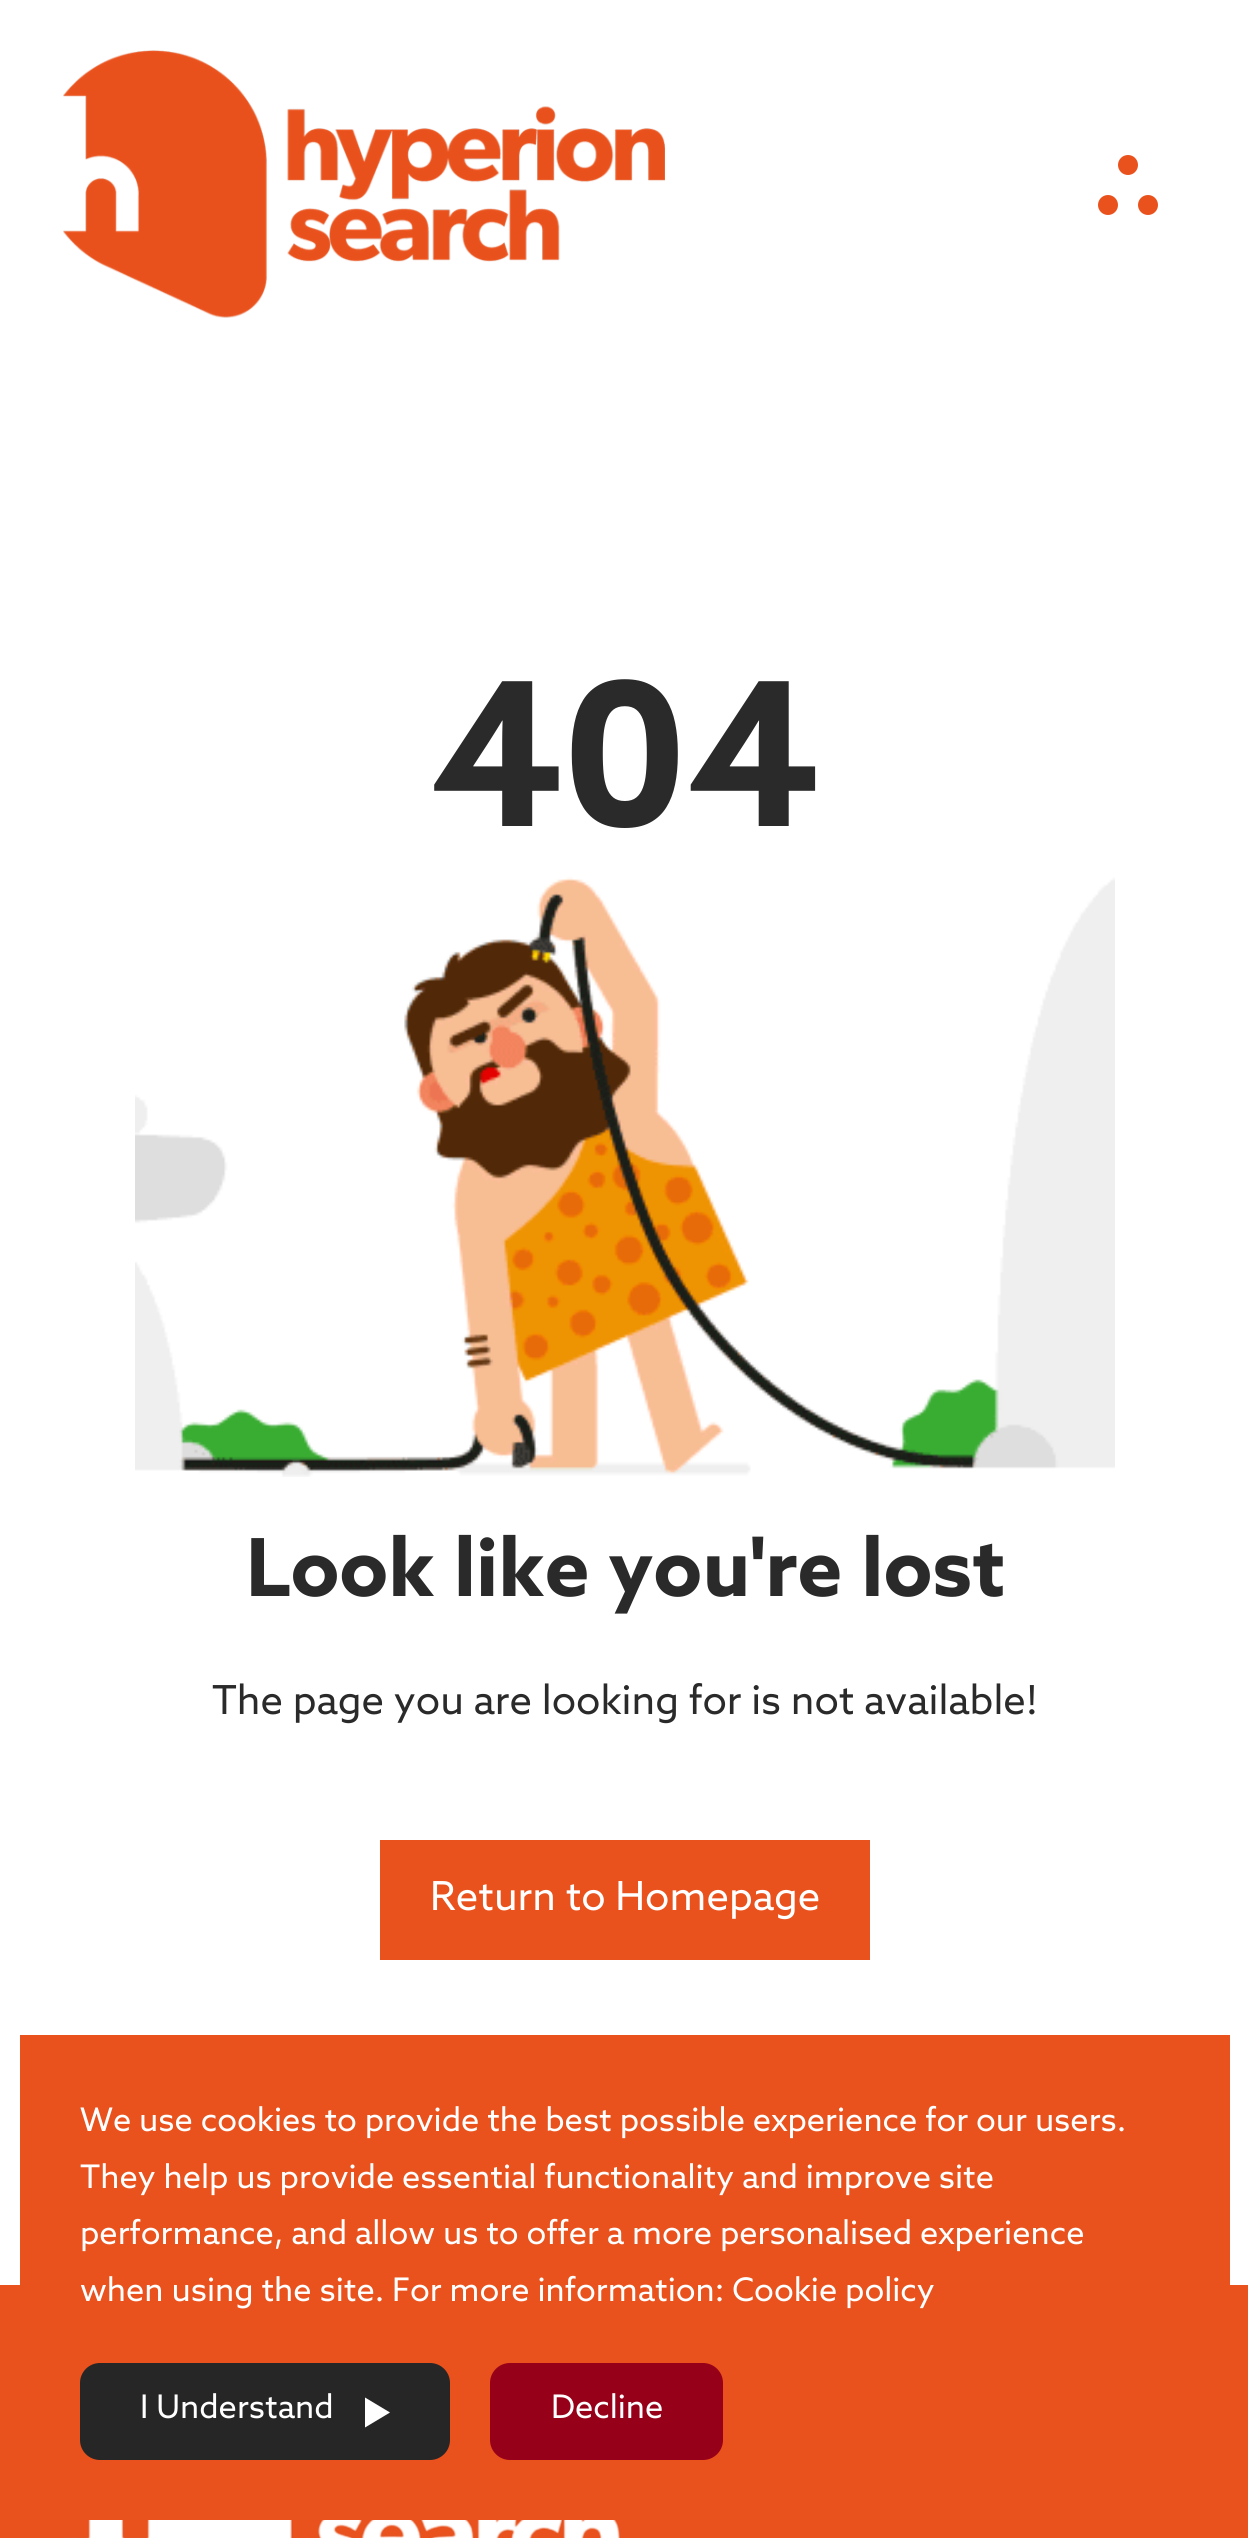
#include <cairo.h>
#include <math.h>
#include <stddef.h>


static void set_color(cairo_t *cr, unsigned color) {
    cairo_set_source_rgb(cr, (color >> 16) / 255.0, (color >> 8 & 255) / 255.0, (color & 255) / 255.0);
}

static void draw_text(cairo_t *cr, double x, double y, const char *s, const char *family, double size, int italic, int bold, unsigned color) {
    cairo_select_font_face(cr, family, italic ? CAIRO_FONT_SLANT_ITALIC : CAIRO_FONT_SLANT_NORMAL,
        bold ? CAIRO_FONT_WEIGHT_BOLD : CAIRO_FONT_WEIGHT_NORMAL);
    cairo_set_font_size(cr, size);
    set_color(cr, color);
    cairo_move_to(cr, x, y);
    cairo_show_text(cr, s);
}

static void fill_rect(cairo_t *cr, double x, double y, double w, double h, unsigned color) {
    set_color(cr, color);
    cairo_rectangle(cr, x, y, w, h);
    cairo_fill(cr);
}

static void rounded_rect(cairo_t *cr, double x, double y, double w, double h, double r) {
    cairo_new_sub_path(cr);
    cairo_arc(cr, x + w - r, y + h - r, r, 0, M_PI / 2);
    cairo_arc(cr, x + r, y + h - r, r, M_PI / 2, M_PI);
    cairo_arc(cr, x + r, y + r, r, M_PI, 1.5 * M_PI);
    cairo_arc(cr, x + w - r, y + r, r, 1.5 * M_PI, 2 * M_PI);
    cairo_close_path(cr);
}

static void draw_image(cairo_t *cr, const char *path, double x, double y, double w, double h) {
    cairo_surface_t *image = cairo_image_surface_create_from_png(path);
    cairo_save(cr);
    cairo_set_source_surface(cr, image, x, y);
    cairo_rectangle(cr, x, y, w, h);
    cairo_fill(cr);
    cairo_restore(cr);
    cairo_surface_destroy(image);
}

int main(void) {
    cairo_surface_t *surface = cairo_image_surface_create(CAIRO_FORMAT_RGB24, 1248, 2538);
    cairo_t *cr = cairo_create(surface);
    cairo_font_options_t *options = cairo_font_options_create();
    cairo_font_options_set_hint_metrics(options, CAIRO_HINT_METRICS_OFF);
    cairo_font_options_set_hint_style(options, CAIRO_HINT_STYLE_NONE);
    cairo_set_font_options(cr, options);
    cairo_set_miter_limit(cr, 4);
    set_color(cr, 0xFFFFFF);
    cairo_paint(cr);
    draw_image(cr, "assets/img1.png", 63, 50, 602, 268);
    set_color(cr, 0xE9511D);
    cairo_arc(cr, 1128, 165, 10, 0, 2 * M_PI);
    cairo_fill(cr);
    cairo_arc(cr, 1108, 205, 10, 0, 2 * M_PI);
    cairo_fill(cr);
    cairo_arc(cr, 1148, 205, 10, 0, 2 * M_PI);
    cairo_fill(cr);
    draw_image(cr, "assets/img2.png", 135, 877, 980, 600);
    draw_text(cr, 431, 826, "404", "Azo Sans", 200, 0, 1, 0x2A2A2A);
    draw_text(cr, 246, 1596, "Look like you're lost", "Azo Sans", 80, 0, 1, 0x2A2A2A);
    draw_text(cr, 212, 1714, "The page you are looking for is not available!", "Azo Sans", 40, 0, 0, 0x2A2A2A);
    fill_rect(cr, 380, 1840, 490, 120, 0xE9511D);
    draw_text(cr, 430, 1910, "Return to Homepage", "Azo Sans", 40, 0, 0, 0xFFFFFF);
    fill_rect(cr, 20, 2035, 1210, 250, 0xE9511D);
    draw_text(cr, 80, 2131, "We use cookies to provide the best possible experience for our users.", "Azo Sans", 32.5, 0, 0, 0xFFFFFF);
    draw_text(cr, 80, 2188, "They help us provide essential functionality and improve site", "Azo Sans", 32.5, 0, 0, 0xFFFFFF);
    draw_text(cr, 80, 2244, "performance, and allow us to offer a more personalised experience", "Azo Sans", 32.5, 0, 0, 0xFFFFFF);
    fill_rect(cr, 0, 2285, 1248, 253, 0xE9511D);
    draw_text(cr, 80, 2301, "when using the site. For more information: Cookie policy", "Azo Sans", 32.5, 0, 0, 0xFFFFFF);
    set_color(cr, 0x262626);
    rounded_rect(cr, 80, 2363, 370, 97, 20);
    cairo_fill(cr);
    draw_text(cr, 140, 2418, "I Understand", "Azo Sans", 32.5, 0, 0, 0xFFFFFF);
    cairo_new_path(cr);
    cairo_move_to(cr, 365, 2427.5);
    cairo_line_to(cr, 365, 2397.5);
    cairo_line_to(cr, 390, 2412.5);
    cairo_close_path(cr);
    cairo_fill(cr);
    set_color(cr, 0x960018);
    rounded_rect(cr, 490, 2363, 233, 97, 20);
    cairo_fill(cr);
    draw_text(cr, 551, 2418, "Decline", "Azo Sans", 32.5, 0, 0, 0xFFFFFF);
    draw_image(cr, "assets/img3.png", 64, 2520, 556, 18);
    cairo_surface_write_to_png(surface, "output.png");
    cairo_font_options_destroy(options);
    cairo_destroy(cr);
    cairo_surface_destroy(surface);
    return 0;
}
